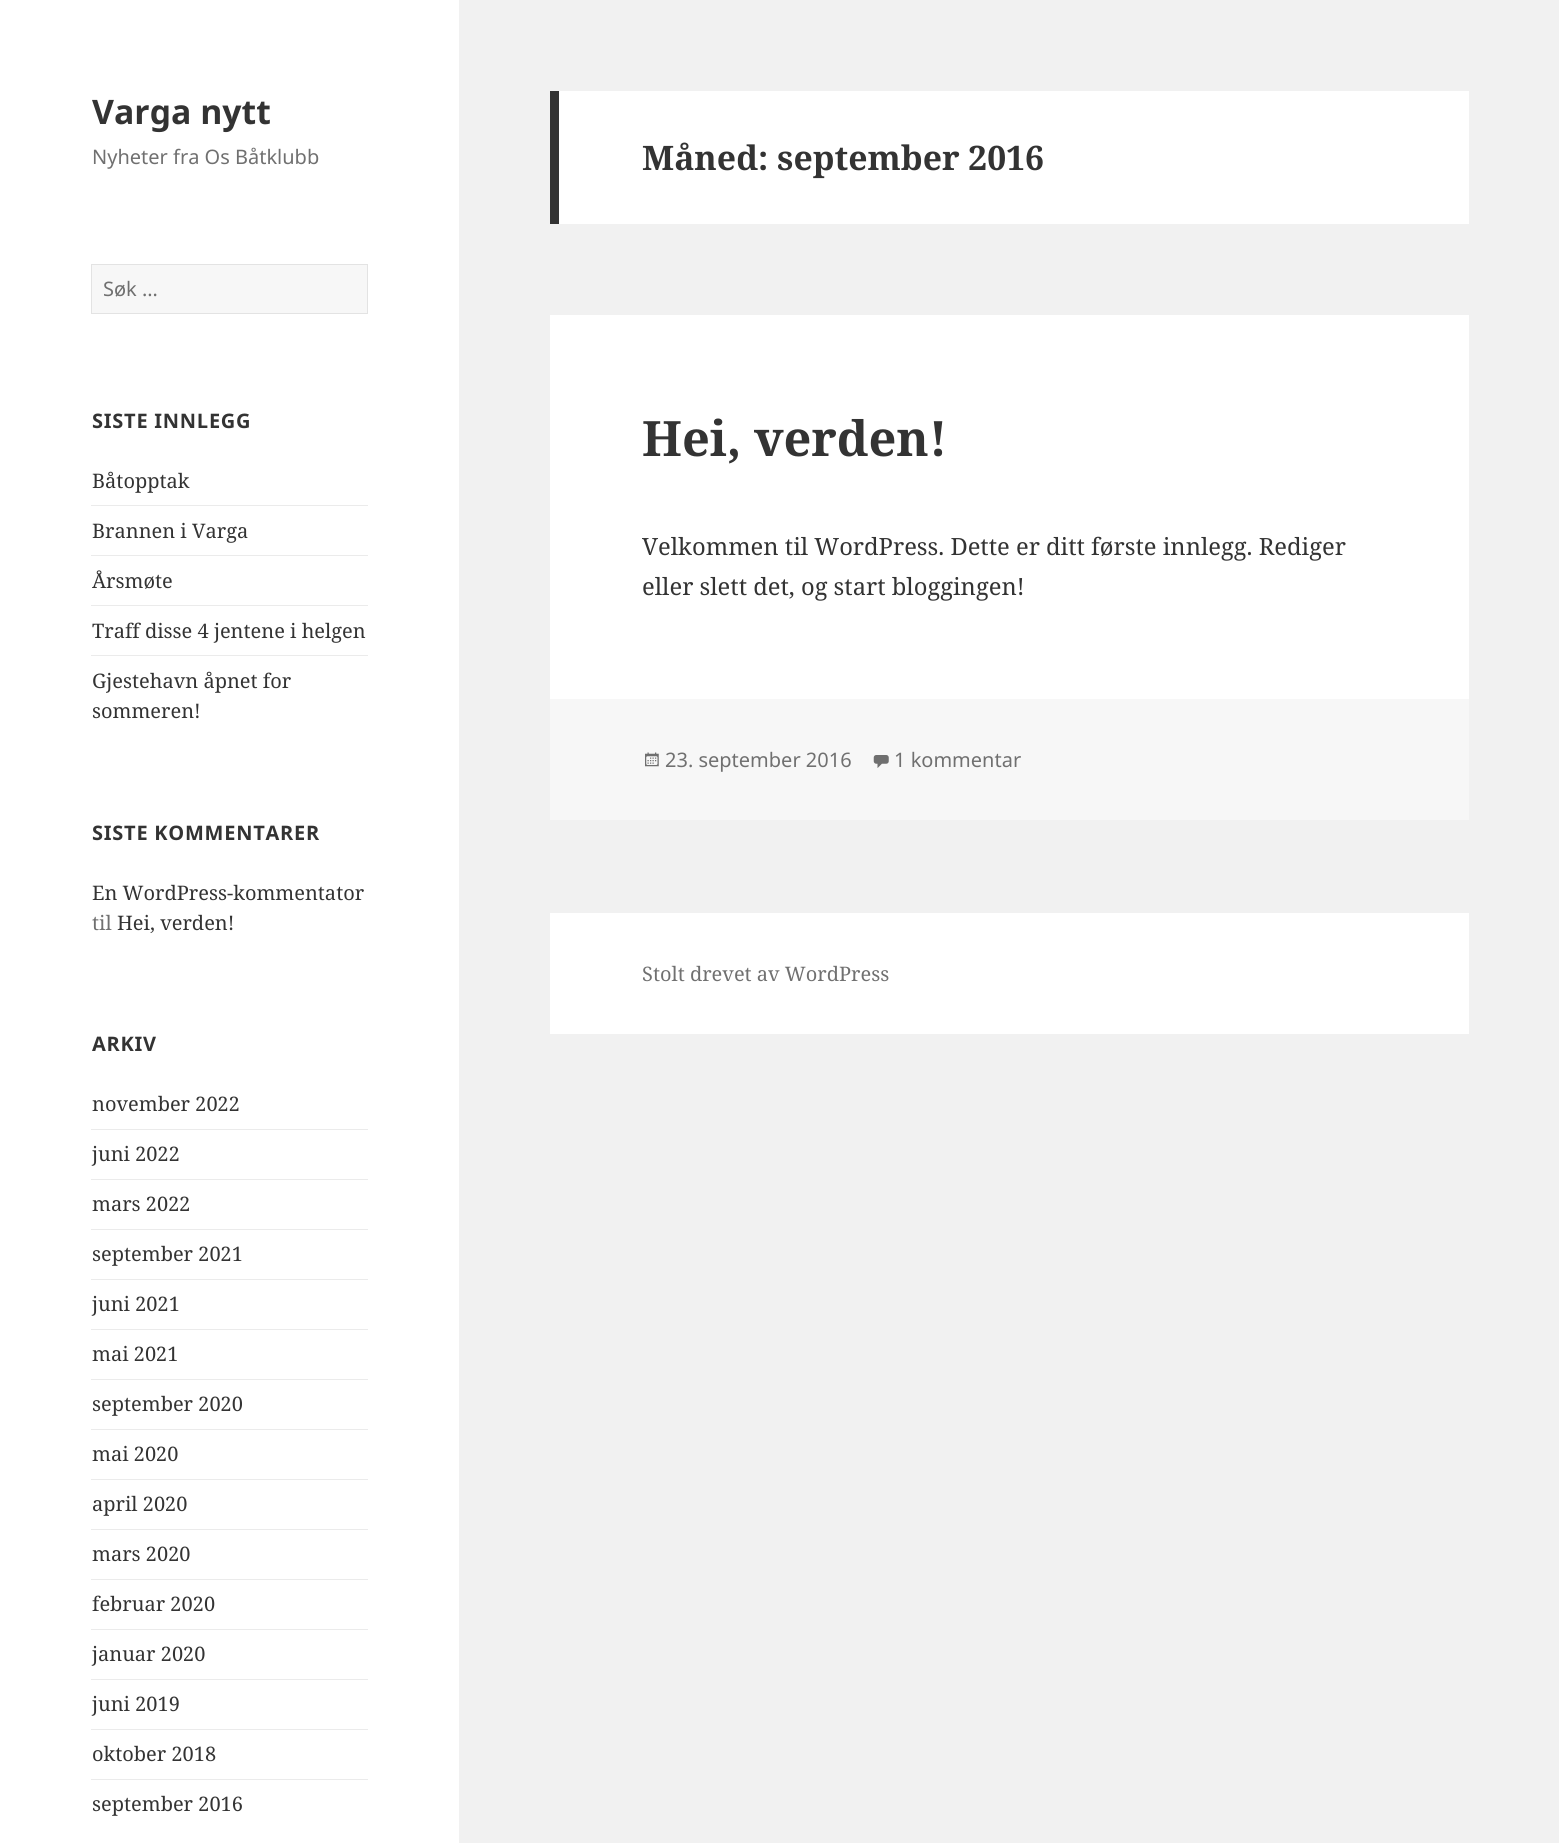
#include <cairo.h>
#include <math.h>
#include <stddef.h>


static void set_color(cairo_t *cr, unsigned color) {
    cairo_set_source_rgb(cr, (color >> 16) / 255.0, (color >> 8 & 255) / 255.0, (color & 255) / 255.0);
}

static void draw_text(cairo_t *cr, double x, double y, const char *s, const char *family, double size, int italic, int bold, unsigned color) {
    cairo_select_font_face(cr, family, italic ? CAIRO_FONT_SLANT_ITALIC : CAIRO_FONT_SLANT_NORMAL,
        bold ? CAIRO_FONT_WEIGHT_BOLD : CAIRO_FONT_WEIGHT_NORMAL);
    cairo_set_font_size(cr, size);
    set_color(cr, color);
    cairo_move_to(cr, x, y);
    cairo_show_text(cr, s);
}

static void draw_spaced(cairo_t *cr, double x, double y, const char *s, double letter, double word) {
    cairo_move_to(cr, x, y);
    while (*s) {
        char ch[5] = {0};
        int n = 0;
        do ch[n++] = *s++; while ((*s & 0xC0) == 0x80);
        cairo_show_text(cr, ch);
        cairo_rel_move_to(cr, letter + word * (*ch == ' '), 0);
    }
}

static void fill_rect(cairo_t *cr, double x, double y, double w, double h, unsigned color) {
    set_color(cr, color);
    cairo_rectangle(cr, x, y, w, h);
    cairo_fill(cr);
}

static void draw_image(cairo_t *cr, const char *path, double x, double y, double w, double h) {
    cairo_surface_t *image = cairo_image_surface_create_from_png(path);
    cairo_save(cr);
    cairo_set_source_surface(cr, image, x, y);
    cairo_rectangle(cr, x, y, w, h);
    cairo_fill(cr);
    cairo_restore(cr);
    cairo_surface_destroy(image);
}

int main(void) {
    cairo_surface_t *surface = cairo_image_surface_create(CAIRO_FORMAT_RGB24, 1559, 1843);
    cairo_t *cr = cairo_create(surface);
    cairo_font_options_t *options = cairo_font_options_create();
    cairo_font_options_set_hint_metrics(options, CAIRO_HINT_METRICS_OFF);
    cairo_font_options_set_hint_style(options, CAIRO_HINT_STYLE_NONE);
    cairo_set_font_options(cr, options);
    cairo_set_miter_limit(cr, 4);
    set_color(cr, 0xF1F1F1);
    cairo_paint(cr);
    fill_rect(cr, 0, 0, 459, 1843, 0xFFFFFF);
    draw_text(cr, 92, 124, "Varga nytt", "Noto Sans", 33.75, 0, 1, 0x333333);
    draw_text(cr, 92, 164, "Nyheter fra Os Båtklubb", "Noto Sans", 20, 0, 0, 0x707070);
    set_color(cr, 0xF7F7F7);
    cairo_rectangle(cr, 91.5, 264.5, 276, 49);
    cairo_fill_preserve(cr);
    set_color(cr, 0xE3E3E3);
    cairo_set_line_width(cr, 1);
    cairo_stroke(cr);
    draw_text(cr, 103, 296, "Søk …", "Noto Sans", 20, 0, 0, 0x707070);
    cairo_select_font_face(cr, "Noto Sans", CAIRO_FONT_SLANT_NORMAL, CAIRO_FONT_WEIGHT_BOLD);
    set_color(cr, 0x333333);
    draw_spaced(cr, 92, 428, "SISTE INNLEGG", 0.75, 0);
    draw_text(cr, 92, 488, "Båtopptak", "Noto Serif", 20, 0, 0, 0x333333);
    fill_rect(cr, 91, 505, 277, 1, 0xEBEBEB);
    draw_text(cr, 92, 538, "Brannen i Varga", "Noto Serif", 20, 0, 0, 0x333333);
    fill_rect(cr, 91, 555, 277, 1, 0xEBEBEB);
    draw_text(cr, 92, 588, "Årsmøte", "Noto Serif", 20, 0, 0, 0x333333);
    fill_rect(cr, 91, 605, 277, 1, 0xEBEBEB);
    draw_text(cr, 92, 638, "Traff disse 4 jentene i helgen", "Noto Serif", 20, 0, 0, 0x333333);
    fill_rect(cr, 91, 655, 277, 1, 0xEBEBEB);
    draw_text(cr, 92, 688, "Gjestehavn åpnet for", "Noto Serif", 20, 0, 0, 0x333333);
    draw_text(cr, 92, 718, "sommeren!", "Noto Serif", 20, 0, 0, 0x333333);
    cairo_select_font_face(cr, "Noto Sans", CAIRO_FONT_SLANT_NORMAL, CAIRO_FONT_WEIGHT_BOLD);
    draw_spaced(cr, 92, 840, "SISTE KOMMENTARER", 0.75, 0);
    draw_text(cr, 92, 900, "En WordPress-kommentator", "Noto Serif", 20, 0, 0, 0x333333);
    draw_text(cr, 92, 930, "til", "Noto Serif", 20, 0, 0, 0x707070);
    draw_text(cr, 117, 930, "Hei, verden!", "Noto Serif", 20, 0, 0, 0x333333);
    cairo_select_font_face(cr, "Noto Sans", CAIRO_FONT_SLANT_NORMAL, CAIRO_FONT_WEIGHT_BOLD);
    draw_spaced(cr, 92, 1051, "ARKIV", 0.75, 0);
    draw_text(cr, 92, 1111, "november 2022", "Noto Serif", 20, 0, 0, 0x333333);
    fill_rect(cr, 91, 1129, 277, 1, 0xEBEBEB);
    draw_text(cr, 92, 1161, "juni 2022", "Noto Serif", 20, 0, 0, 0x333333);
    fill_rect(cr, 91, 1179, 277, 1, 0xEBEBEB);
    draw_text(cr, 92, 1211, "mars 2022", "Noto Serif", 20, 0, 0, 0x333333);
    fill_rect(cr, 91, 1229, 277, 1, 0xEBEBEB);
    draw_text(cr, 92, 1261, "september 2021", "Noto Serif", 20, 0, 0, 0x333333);
    fill_rect(cr, 91, 1279, 277, 1, 0xEBEBEB);
    draw_text(cr, 92, 1311, "juni 2021", "Noto Serif", 20, 0, 0, 0x333333);
    fill_rect(cr, 91, 1329, 277, 1, 0xEBEBEB);
    draw_text(cr, 92, 1361, "mai 2021", "Noto Serif", 20, 0, 0, 0x333333);
    fill_rect(cr, 91, 1379, 277, 1, 0xEBEBEB);
    draw_text(cr, 92, 1411, "september 2020", "Noto Serif", 20, 0, 0, 0x333333);
    fill_rect(cr, 91, 1429, 277, 1, 0xEBEBEB);
    draw_text(cr, 92, 1461, "mai 2020", "Noto Serif", 20, 0, 0, 0x333333);
    fill_rect(cr, 91, 1479, 277, 1, 0xEBEBEB);
    draw_text(cr, 92, 1511, "april 2020", "Noto Serif", 20, 0, 0, 0x333333);
    fill_rect(cr, 91, 1529, 277, 1, 0xEBEBEB);
    draw_text(cr, 92, 1561, "mars 2020", "Noto Serif", 20, 0, 0, 0x333333);
    fill_rect(cr, 91, 1579, 277, 1, 0xEBEBEB);
    draw_text(cr, 92, 1611, "februar 2020", "Noto Serif", 20, 0, 0, 0x333333);
    fill_rect(cr, 91, 1629, 277, 1, 0xEBEBEB);
    draw_text(cr, 92, 1661, "januar 2020", "Noto Serif", 20, 0, 0, 0x333333);
    fill_rect(cr, 91, 1679, 277, 1, 0xEBEBEB);
    draw_text(cr, 92, 1711, "juni 2019", "Noto Serif", 20, 0, 0, 0x333333);
    fill_rect(cr, 91, 1729, 277, 1, 0xEBEBEB);
    draw_text(cr, 92, 1761, "oktober 2018", "Noto Serif", 20, 0, 0, 0x333333);
    fill_rect(cr, 91, 1779, 277, 1, 0xEBEBEB);
    draw_text(cr, 92, 1811, "september 2016", "Noto Serif", 20, 0, 0, 0x333333);
    fill_rect(cr, 559, 91, 910, 133, 0xFFFFFF);
    fill_rect(cr, 550, 91, 9, 133, 0x333333);
    draw_text(cr, 642, 170, "Måned: september 2016", "Noto Serif", 33.75, 0, 1, 0x333333);
    fill_rect(cr, 550, 315, 919, 384, 0xFFFFFF);
    draw_text(cr, 642, 456, "Hei, verden!", "Noto Serif", 48.75, 0, 1, 0x333333);
    draw_text(cr, 642, 555, "Velkommen til WordPress. Dette er ditt første innlegg. Rediger", "Noto Serif", 23.75, 0, 0, 0x333333);
    draw_text(cr, 642, 595, "eller slett det, og start bloggingen!", "Noto Serif", 23.75, 0, 0, 0x333333);
    fill_rect(cr, 550, 699, 919, 121, 0xF7F7F7);
    draw_image(cr, "assets/img1.png", 645, 752, 14, 15);
    draw_text(cr, 665, 767, "23. september 2016", "Noto Sans", 20, 0, 0, 0x707070);
    draw_image(cr, "assets/img2.png", 873, 755, 16, 13);
    draw_text(cr, 894, 767, "1 kommentar", "Noto Sans", 20, 0, 0, 0x707070);
    fill_rect(cr, 550, 913, 919, 121, 0xFFFFFF);
    draw_text(cr, 642, 981, "Stolt drevet av WordPress", "Noto Serif", 20, 0, 0, 0x707070);
    cairo_surface_write_to_png(surface, "output.png");
    cairo_font_options_destroy(options);
    cairo_destroy(cr);
    cairo_surface_destroy(surface);
    return 0;
}
